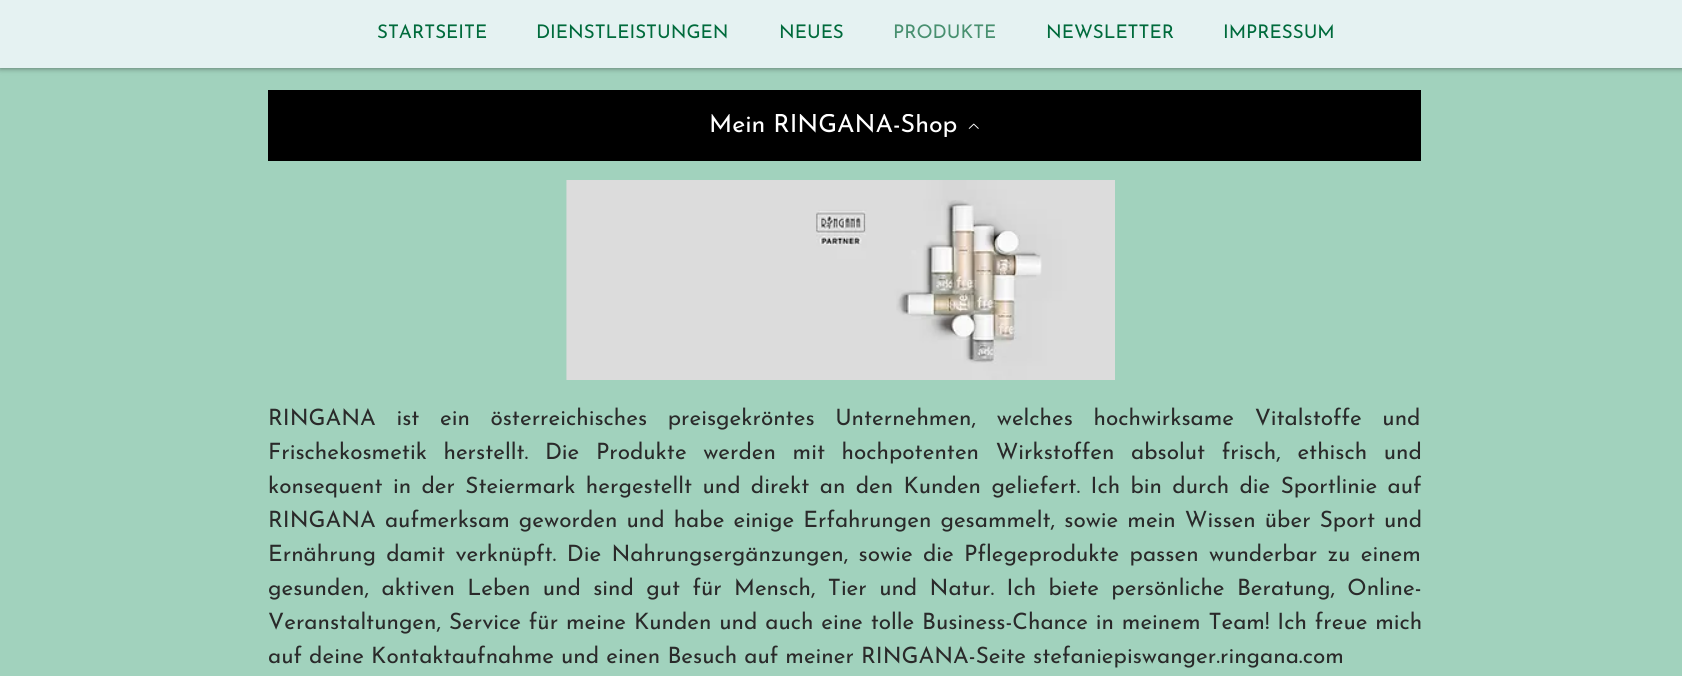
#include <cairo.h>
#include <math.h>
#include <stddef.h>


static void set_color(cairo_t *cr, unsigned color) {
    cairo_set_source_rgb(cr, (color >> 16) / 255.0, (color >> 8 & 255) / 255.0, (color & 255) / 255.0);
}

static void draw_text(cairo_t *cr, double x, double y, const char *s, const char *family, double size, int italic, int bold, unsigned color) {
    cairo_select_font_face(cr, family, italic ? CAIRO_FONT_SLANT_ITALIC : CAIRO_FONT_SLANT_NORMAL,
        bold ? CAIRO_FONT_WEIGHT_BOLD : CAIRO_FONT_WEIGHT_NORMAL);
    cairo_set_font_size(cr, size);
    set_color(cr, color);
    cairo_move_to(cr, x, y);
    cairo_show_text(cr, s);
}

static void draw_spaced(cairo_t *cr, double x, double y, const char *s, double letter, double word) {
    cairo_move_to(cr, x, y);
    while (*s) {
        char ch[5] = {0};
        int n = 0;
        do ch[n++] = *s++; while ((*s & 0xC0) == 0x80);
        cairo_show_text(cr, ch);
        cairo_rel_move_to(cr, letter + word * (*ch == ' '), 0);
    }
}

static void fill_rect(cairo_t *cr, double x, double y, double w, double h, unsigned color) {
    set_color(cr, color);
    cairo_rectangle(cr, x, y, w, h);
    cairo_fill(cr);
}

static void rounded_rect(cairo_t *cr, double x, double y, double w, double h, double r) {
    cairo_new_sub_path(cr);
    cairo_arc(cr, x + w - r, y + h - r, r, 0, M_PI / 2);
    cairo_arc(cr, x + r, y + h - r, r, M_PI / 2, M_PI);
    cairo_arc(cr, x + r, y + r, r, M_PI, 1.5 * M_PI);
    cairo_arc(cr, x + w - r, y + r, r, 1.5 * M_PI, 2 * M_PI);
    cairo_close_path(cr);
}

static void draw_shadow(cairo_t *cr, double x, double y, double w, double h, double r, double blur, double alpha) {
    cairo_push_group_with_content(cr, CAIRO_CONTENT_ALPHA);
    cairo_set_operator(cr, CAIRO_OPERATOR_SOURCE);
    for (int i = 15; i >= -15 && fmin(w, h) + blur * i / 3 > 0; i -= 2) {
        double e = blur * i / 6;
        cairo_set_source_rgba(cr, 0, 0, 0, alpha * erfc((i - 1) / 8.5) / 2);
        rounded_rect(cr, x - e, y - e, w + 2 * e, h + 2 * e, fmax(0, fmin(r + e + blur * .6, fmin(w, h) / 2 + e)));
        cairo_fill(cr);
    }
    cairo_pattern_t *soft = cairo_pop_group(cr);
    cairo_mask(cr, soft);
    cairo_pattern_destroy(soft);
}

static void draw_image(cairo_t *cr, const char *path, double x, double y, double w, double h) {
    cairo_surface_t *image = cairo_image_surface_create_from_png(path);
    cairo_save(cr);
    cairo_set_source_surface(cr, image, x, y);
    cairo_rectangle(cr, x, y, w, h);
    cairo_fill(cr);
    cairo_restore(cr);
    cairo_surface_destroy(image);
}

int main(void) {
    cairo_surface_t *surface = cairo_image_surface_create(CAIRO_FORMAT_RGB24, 1682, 676);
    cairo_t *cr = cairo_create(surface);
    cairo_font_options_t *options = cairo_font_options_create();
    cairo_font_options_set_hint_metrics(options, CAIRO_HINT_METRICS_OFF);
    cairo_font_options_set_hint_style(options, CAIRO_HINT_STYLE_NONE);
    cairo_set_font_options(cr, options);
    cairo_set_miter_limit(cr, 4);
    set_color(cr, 0x81C0C2);
    cairo_paint(cr);
    fill_rect(cr, 0, 68, 1682, 608, 0xA1D2BD);
    cairo_save(cr);
    cairo_set_fill_rule(cr, CAIRO_FILL_RULE_EVEN_ODD);
    cairo_new_path(cr);
    cairo_move_to(cr, 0, 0);
    cairo_line_to(cr, 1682, 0);
    cairo_line_to(cr, 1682, 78);
    cairo_line_to(cr, 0, 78);
    cairo_close_path(cr);
    cairo_move_to(cr, 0, 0);
    cairo_line_to(cr, 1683, 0);
    cairo_line_to(cr, 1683, 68);
    cairo_line_to(cr, 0, 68);
    cairo_close_path(cr);
    cairo_clip(cr);
    set_color(cr, 0x000000);
    draw_shadow(cr, 0, 0, 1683, 68, 0, 3, 0.5);
    cairo_restore(cr);
    cairo_set_source_rgba(cr, 1, 1, 1, 0.79);
    cairo_rectangle(cr, 0, 0, 1682, 68);
    cairo_fill(cr);
    draw_text(cr, 377, 38, "STARTSEITE", "Josefin Sans", 18.75, 0, 0, 0x006B3C);
    draw_text(cr, 536, 38, "DIENSTLEISTUNGEN", "Josefin Sans", 18.75, 0, 0, 0x006B3C);
    draw_text(cr, 779, 38, "NEUES", "Josefin Sans", 18.75, 0, 0, 0x006B3C);
    draw_text(cr, 893, 38, "PRODUKTE", "Josefin Sans", 18.75, 0, 0, 0x489070);
    draw_text(cr, 1046, 38, "NEWSLETTER", "Josefin Sans", 18.75, 0, 0, 0x006B3C);
    draw_text(cr, 1223, 38, "IMPRESSUM", "Josefin Sans", 18.75, 0, 0, 0x006B3C);
    fill_rect(cr, 268, 90, 1153, 71, 0x000000);
    cairo_save(cr);
    cairo_rectangle(cr, 709, 114, 249, 25);
    cairo_clip(cr);
    draw_text(cr, 709, 132, "Mein RINGANA-Shop", "Josefin Sans Thin", 25, 0, 0, 0xFFFFFF);
    cairo_restore(cr);
    draw_image(cr, "assets/img1.png", 968, 123, 11, 6);
    draw_image(cr, "assets/img2.png", 566, 180, 549, 200);
    cairo_select_font_face(cr, "Josefin Sans Thin", CAIRO_FONT_SLANT_NORMAL, CAIRO_FONT_WEIGHT_NORMAL);
    cairo_set_font_size(cr, 22.5);
    set_color(cr, 0x2A2A2A);
    draw_spaced(cr, 268, 425, "RINGANA ist ein österreichisches preisgekröntes Unternehmen, welches hochwirksame Vitalstoffe und", 0, 13.5);
    draw_spaced(cr, 268, 459, "Frischekosmetik herstellt. Die Produkte werden mit hochpotenten Wirkstoffen absolut frisch, ethisch und", 0, 9.5);
    draw_spaced(cr, 268, 493, "konsequent in der Steiermark hergestellt und direkt an den Kunden geliefert. Ich bin durch die Sportlinie auf", 0, 3.25);
    draw_spaced(cr, 268, 527, "RINGANA aufmerksam geworden und habe einige Erfahrungen gesammelt, sowie mein Wissen über Sport und", 0, 2);
    draw_spaced(cr, 268, 561, "Ernährung damit verknüpft. Die Nahrungsergänzungen, sowie die Pflegeprodukte passen wunderbar zu einem", 0, 3.25);
    draw_spaced(cr, 268, 595, "gesunden, aktiven Leben und sind gut für Mensch, Tier und Natur. Ich biete persönliche Beratung, Online-", 0, 5.25);
    draw_spaced(cr, 268, 629, "Veranstaltungen, Service für meine Kunden und auch eine tolle Business-Chance in meinem Team! Ich freue mich", 0, 0.75);
    draw_text(cr, 268, 663, "auf deine Kontaktaufnahme und einen Besuch auf meiner RINGANA-Seite stefaniepiswanger.ringana.com", "Josefin Sans Thin", 22.5, 0, 0, 0x2A2A2A);
    cairo_surface_write_to_png(surface, "output.png");
    cairo_font_options_destroy(options);
    cairo_destroy(cr);
    cairo_surface_destroy(surface);
    return 0;
}
